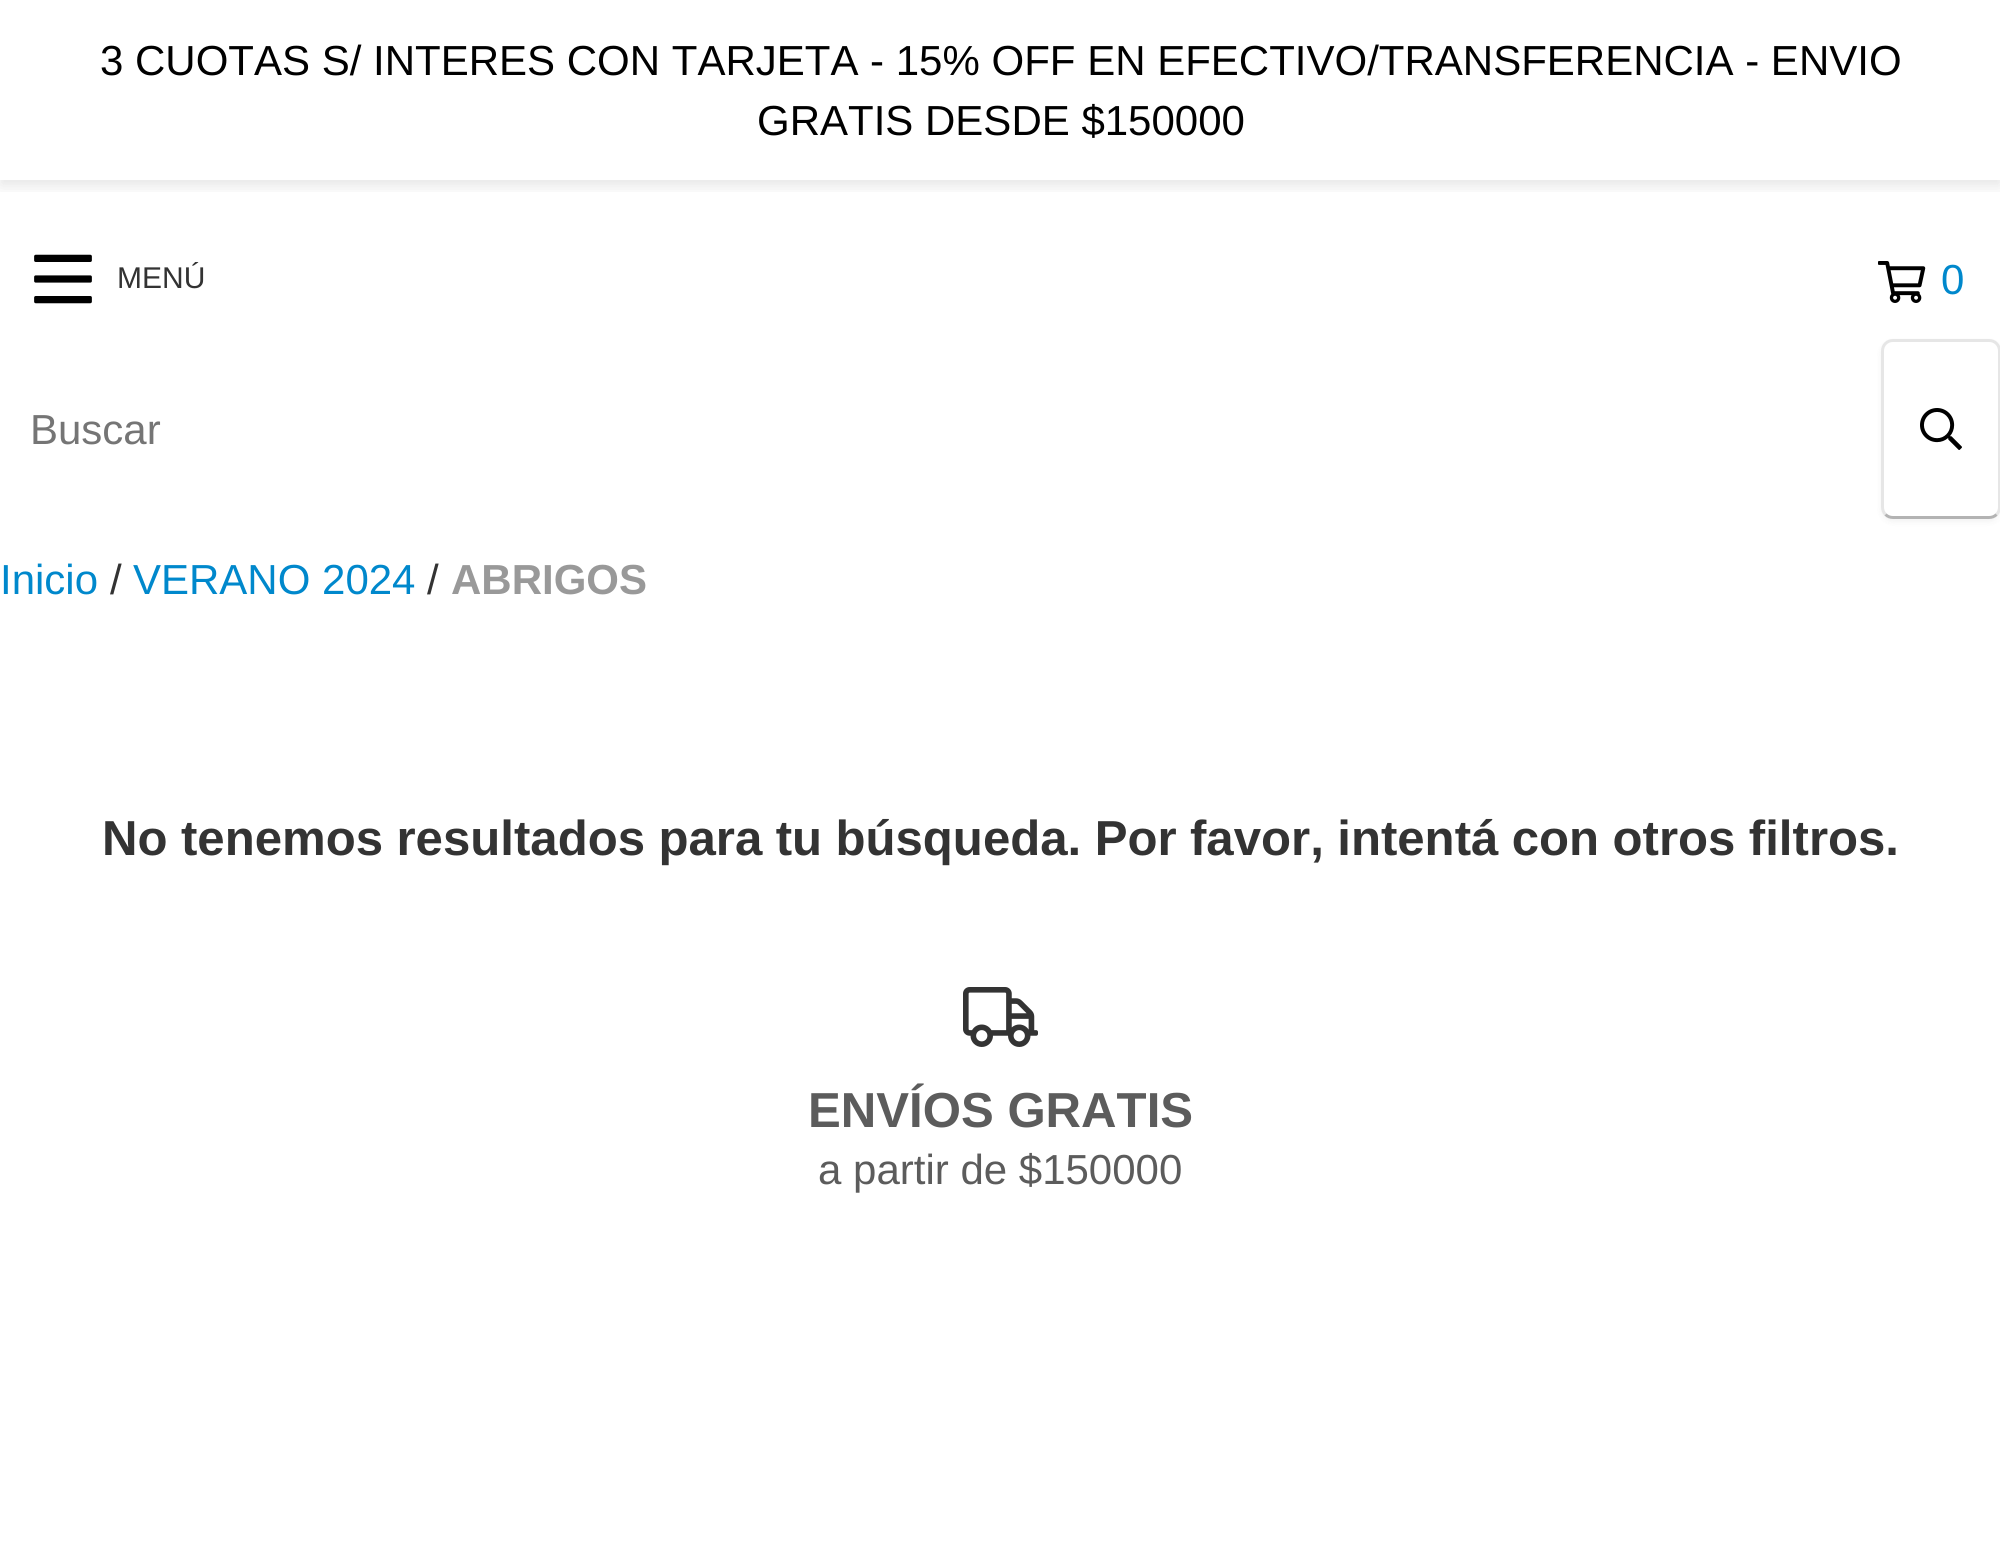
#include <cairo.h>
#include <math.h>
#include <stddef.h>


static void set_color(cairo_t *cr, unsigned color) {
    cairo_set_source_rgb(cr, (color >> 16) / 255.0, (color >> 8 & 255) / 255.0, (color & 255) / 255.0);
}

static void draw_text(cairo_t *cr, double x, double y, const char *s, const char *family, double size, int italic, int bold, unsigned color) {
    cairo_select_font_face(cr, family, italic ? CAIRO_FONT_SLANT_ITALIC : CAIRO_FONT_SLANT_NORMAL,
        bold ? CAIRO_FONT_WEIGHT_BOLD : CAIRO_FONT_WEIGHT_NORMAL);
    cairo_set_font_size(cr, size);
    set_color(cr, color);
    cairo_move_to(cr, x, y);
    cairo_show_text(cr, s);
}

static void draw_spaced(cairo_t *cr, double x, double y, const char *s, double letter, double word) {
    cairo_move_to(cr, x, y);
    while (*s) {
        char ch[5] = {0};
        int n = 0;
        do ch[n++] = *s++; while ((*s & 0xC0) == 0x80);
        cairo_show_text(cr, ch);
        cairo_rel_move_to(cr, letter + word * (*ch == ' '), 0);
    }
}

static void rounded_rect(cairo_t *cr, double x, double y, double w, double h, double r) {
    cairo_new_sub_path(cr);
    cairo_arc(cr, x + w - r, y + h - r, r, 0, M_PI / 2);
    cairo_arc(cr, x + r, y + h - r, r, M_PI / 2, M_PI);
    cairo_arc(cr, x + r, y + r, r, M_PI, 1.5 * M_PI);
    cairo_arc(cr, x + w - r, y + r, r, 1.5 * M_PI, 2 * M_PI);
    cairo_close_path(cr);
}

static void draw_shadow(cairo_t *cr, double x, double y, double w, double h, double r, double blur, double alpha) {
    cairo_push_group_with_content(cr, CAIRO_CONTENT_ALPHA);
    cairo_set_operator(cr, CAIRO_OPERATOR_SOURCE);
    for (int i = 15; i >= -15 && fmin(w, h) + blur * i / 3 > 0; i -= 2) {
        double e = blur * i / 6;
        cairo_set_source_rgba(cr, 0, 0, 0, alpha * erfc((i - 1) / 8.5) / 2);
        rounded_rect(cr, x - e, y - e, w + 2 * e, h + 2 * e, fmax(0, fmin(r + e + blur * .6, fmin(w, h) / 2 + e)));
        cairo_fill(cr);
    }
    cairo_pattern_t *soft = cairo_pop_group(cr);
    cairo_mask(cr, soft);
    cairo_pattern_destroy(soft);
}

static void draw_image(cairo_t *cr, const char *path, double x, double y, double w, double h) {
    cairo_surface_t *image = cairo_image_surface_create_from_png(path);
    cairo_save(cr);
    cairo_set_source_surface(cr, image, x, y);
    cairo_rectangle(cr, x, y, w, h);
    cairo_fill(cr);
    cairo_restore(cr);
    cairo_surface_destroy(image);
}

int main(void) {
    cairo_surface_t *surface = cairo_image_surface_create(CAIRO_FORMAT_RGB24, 2000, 1564);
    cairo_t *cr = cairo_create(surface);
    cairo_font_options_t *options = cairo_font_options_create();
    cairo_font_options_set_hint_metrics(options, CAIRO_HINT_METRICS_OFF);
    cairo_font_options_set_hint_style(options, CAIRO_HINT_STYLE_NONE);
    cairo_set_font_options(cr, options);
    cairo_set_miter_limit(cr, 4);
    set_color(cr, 0xFFFFFF);
    cairo_paint(cr);
    cairo_save(cr);
    cairo_rectangle(cr, 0, 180, 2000, 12);
    cairo_clip(cr);
    set_color(cr, 0x000000);
    draw_shadow(cr, 0, 6, 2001, 180, 0, 7.5, 0.1);
    cairo_restore(cr);
    draw_text(cr, 100, 75, "3 CUOTAS S/ INTERES CON TARJETA - 15% OFF EN EFECTIVO/TRANSFERENCIA - ENVIO", "Liberation Sans", 42, 0, 0, 0x000000);
    draw_text(cr, 757, 135, "GRATIS DESDE $150000", "Liberation Sans", 42, 0, 0, 0x000000);
    draw_image(cr, "assets/img1.png", 34, 254, 58, 50);
    draw_text(cr, 117, 288, "MENÚ", "Liberation Sans", 30, 0, 0, 0x333333);
    draw_image(cr, "assets/img2.png", 1878, 261, 48, 42);
    cairo_set_font_size(cr, 42);
    set_color(cr, 0x0088CC);
    draw_spaced(cr, 1941, 294, "0", 3, 0);
    draw_text(cr, 30, 444, "Buscar", "Liberation Sans", 42, 0, 0, 0x757575);
    cairo_save(cr);
    cairo_set_fill_rule(cr, CAIRO_FILL_RULE_EVEN_ODD);
    cairo_new_path(cr);
    cairo_move_to(cr, 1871, 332);
    cairo_line_to(cr, 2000, 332);
    cairo_line_to(cr, 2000, 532);
    cairo_line_to(cr, 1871, 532);
    cairo_close_path(cr);
    cairo_move_to(cr, 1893, 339);
    cairo_line_to(cr, 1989, 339);
    cairo_curve_to(cr, 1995.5, 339, 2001, 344.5, 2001, 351);
    cairo_line_to(cr, 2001, 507);
    cairo_curve_to(cr, 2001, 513.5, 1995.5, 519, 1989, 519);
    cairo_line_to(cr, 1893, 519);
    cairo_curve_to(cr, 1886.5, 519, 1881, 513.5, 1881, 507);
    cairo_line_to(cr, 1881, 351);
    cairo_curve_to(cr, 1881, 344.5, 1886.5, 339, 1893, 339);
    cairo_close_path(cr);
    cairo_clip(cr);
    set_color(cr, 0x000000);
    draw_shadow(cr, 1881, 342, 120, 180, 12, 3, 0.05);
    cairo_restore(cr);
    cairo_new_path(cr);
    cairo_move_to(cr, 1996.5, 514.5);
    cairo_curve_to(cr, 1994.5, 516.5, 1992, 517.5, 1989, 517.5);
    cairo_line_to(cr, 1893, 517.5);
    cairo_curve_to(cr, 1890, 517.5, 1887.5, 516.5, 1885.5, 514.5);
    set_color(cr, 0xB3B3B3);
    cairo_set_line_width(cr, 3);
    cairo_stroke(cr);
    cairo_new_path(cr);
    cairo_move_to(cr, 1885.5, 514.5);
    cairo_curve_to(cr, 1883.5, 512.5, 1882.5, 510, 1882.5, 507);
    cairo_line_to(cr, 1882.5, 351);
    cairo_curve_to(cr, 1882.5, 348, 1883.5, 345.5, 1885.5, 343.5);
    cairo_curve_to(cr, 1887.5, 341.5, 1890, 340.5, 1893, 340.5);
    cairo_line_to(cr, 1989, 340.5);
    cairo_curve_to(cr, 1992, 340.5, 1994.5, 341.5, 1996.5, 343.5);
    cairo_curve_to(cr, 1998.5, 345.5, 1999.5, 348, 1999.5, 351);
    cairo_line_to(cr, 1999.5, 507);
    cairo_curve_to(cr, 1999.5, 510, 1998.5, 512.5, 1996.5, 514.5);
    cairo_set_source_rgba(cr, 0, 0, 0, 0.1);
    cairo_stroke(cr);
    draw_image(cr, "assets/img3.png", 1920, 408, 42, 42);
    draw_text(cr, 0, 594, "Inicio", "Liberation Sans", 42, 0, 0, 0x0088CC);
    draw_text(cr, 110, 594, "/", "Liberation Sans", 42, 0, 0, 0x333333);
    draw_text(cr, 133, 594, "VERANO 2024", "Liberation Sans", 42, 0, 0, 0x0088CC);
    draw_text(cr, 427, 594, "/", "Liberation Sans", 42, 0, 0, 0x333333);
    draw_text(cr, 451, 594, "ABRIGOS", "Liberation Sans", 42, 0, 1, 0x999999);
    cairo_set_font_size(cr, 49.15);
    set_color(cr, 0x333333);
    draw_spaced(cr, 102, 855, "No tenemos resultados para tu búsqueda. Por favor, intentá con otros filtros.", 0, -0.25);
    draw_image(cr, "assets/img4.png", 963, 987, 75, 60);
    draw_text(cr, 808, 1127, "ENVÍOS GRATIS", "Liberation Sans", 49.15, 0, 1, 0x5C5C5C);
    draw_text(cr, 818, 1184, "a partir de $150000", "Liberation Sans", 42, 0, 0, 0x5C5C5C);
    cairo_surface_write_to_png(surface, "output.png");
    cairo_font_options_destroy(options);
    cairo_destroy(cr);
    cairo_surface_destroy(surface);
    return 0;
}
